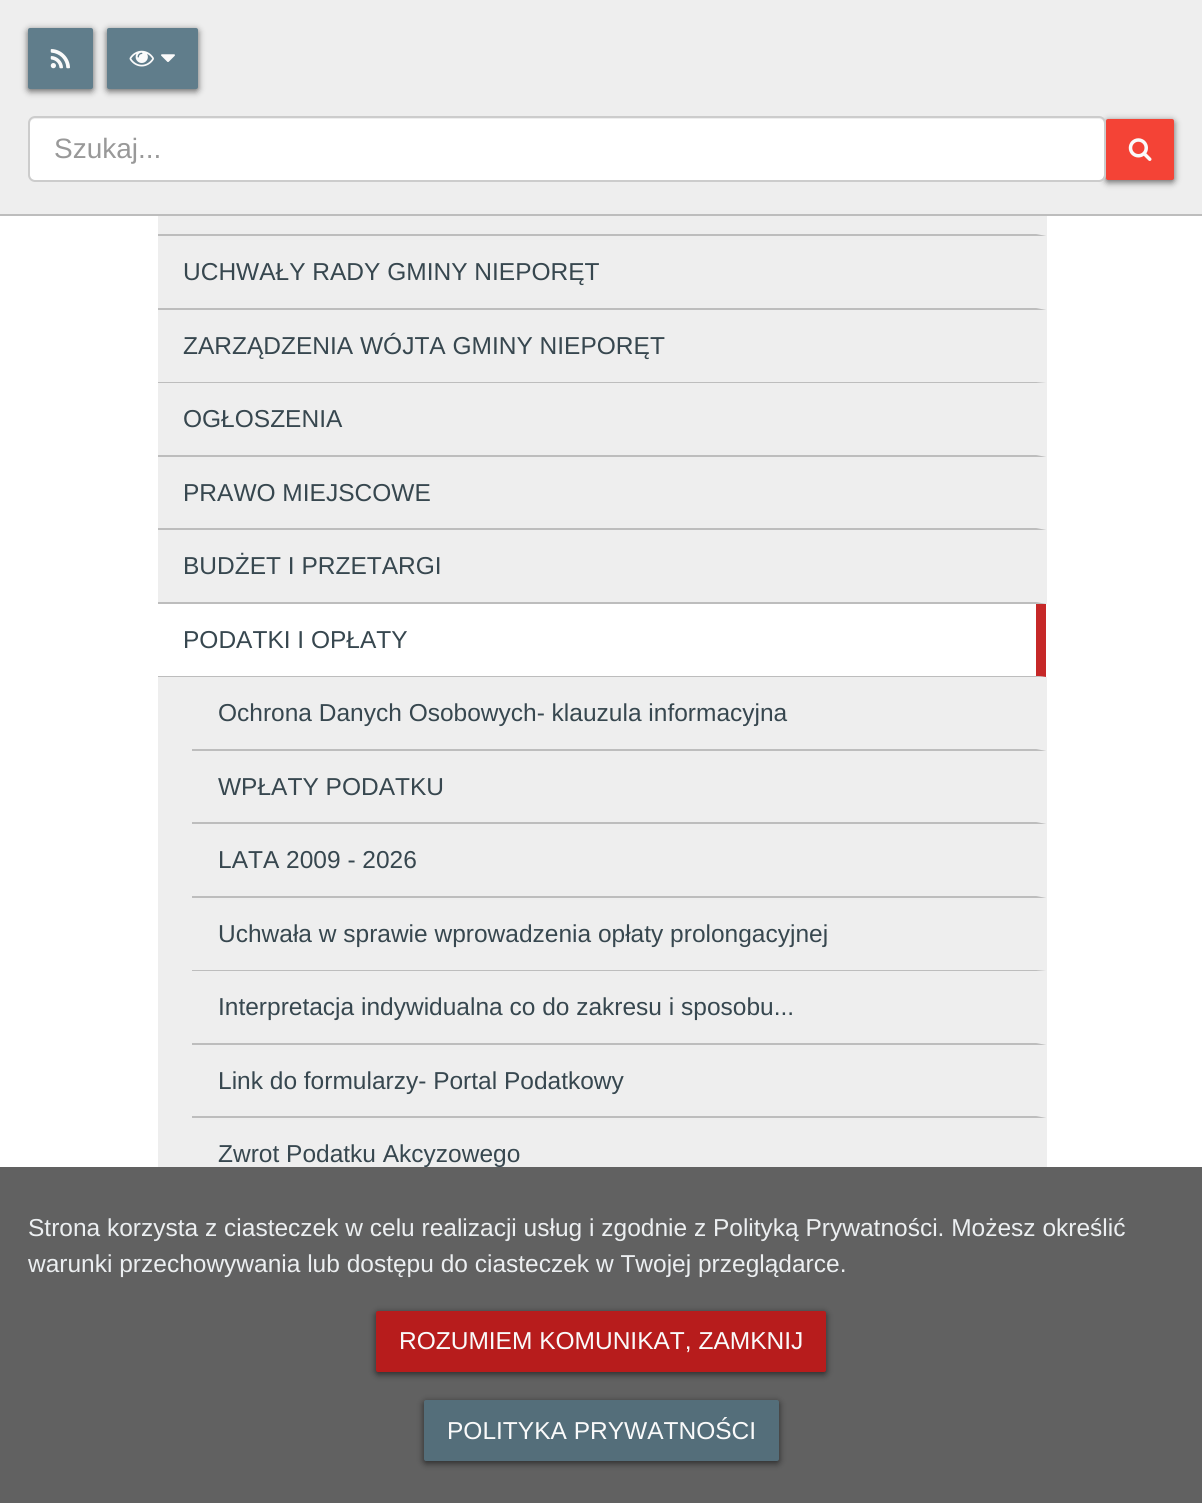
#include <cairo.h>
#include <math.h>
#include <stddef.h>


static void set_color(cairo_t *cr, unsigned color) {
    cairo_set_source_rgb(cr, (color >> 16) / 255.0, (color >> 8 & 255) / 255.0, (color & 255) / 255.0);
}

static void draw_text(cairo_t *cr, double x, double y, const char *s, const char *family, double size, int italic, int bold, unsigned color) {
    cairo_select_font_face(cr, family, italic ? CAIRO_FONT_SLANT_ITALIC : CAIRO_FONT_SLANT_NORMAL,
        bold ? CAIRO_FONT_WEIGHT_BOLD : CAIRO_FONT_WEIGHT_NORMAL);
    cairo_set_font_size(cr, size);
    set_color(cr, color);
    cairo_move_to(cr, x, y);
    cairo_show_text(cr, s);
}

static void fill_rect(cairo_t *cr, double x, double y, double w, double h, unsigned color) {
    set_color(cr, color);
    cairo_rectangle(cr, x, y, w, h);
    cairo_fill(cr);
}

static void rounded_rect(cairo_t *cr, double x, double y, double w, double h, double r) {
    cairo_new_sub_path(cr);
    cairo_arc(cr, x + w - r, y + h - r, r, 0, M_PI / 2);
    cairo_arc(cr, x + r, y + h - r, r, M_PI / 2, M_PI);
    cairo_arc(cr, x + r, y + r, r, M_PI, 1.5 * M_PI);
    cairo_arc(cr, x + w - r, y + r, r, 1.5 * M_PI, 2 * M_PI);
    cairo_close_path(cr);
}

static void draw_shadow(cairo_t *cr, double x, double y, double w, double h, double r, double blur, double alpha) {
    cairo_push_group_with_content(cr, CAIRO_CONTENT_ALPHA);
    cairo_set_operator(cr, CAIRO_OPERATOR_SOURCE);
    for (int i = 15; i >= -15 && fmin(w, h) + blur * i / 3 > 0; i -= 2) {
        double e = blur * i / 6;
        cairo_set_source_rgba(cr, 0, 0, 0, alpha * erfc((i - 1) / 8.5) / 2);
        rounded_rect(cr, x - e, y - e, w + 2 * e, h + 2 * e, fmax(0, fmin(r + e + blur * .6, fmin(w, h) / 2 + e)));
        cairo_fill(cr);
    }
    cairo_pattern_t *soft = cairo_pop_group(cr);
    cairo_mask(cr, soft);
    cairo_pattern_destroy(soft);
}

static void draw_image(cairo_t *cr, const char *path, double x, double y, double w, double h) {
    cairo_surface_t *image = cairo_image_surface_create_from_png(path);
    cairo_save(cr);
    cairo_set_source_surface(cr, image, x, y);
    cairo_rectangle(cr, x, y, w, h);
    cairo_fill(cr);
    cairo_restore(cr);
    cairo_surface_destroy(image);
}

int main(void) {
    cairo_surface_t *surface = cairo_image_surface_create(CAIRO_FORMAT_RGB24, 1202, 1503);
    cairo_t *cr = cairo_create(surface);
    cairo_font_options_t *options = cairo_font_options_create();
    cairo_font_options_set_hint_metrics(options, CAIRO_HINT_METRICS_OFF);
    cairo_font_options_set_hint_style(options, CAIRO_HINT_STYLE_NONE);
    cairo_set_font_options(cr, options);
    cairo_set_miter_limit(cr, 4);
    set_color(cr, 0xFFFFFF);
    cairo_paint(cr);
    fill_rect(cr, 0, 0, 1202, 214, 0xEEEEEE);
    fill_rect(cr, 0, 214, 1202, 2, 0xBDBDBD);
    set_color(cr, 0x000000);
    draw_shadow(cr, 28, 30, 65, 61, 2, 3.5, 0.6);
    set_color(cr, 0x607D8B);
    rounded_rect(cr, 28, 28, 65, 61, 2);
    cairo_fill(cr);
    draw_image(cr, "assets/img1.png", 50, 49, 20, 20);
    set_color(cr, 0x000000);
    draw_shadow(cr, 107, 30, 91, 61, 2, 3.5, 0.6);
    set_color(cr, 0x607D8B);
    rounded_rect(cr, 107, 28, 91, 61, 2);
    cairo_fill(cr);
    draw_image(cr, "assets/img2.png", 129, 50, 25, 17);
    draw_image(cr, "assets/img3.png", 161, 54, 14, 8);
    set_color(cr, 0x000000);
    draw_shadow(cr, 1106, 121, 68, 61, 2, 3.5, 0.6);
    set_color(cr, 0xFFFFFF);
    rounded_rect(cr, 30, 117, 1074, 63, 5);
    cairo_fill(cr);
    cairo_set_source_rgba(cr, 0, 0, 0, 0.07);
    cairo_new_path(cr);
    cairo_move_to(cr, 35, 119);
    cairo_line_to(cr, 1099, 119);
    cairo_curve_to(cr, 1102, 119, 1104, 121, 1104, 124);
    cairo_line_to(cr, 1104, 122);
    cairo_curve_to(cr, 1104, 119, 1102, 117, 1099, 117);
    cairo_line_to(cr, 35, 117);
    cairo_curve_to(cr, 32, 117, 30, 119, 30, 122);
    cairo_line_to(cr, 30, 124);
    cairo_curve_to(cr, 30, 121, 32, 119, 35, 119);
    cairo_close_path(cr);
    cairo_fill(cr);
    rounded_rect(cr, 29, 117, 1076, 64, 6);
    set_color(cr, 0xCCCCCC);
    cairo_stroke(cr);
    draw_text(cr, 54, 158, "Szukaj...", "Liberation Sans", 28, 0, 0, 0x999999);
    set_color(cr, 0xF44336);
    rounded_rect(cr, 1106, 119, 68, 61, 2);
    cairo_fill(cr);
    draw_image(cr, "assets/img4.png", 1128, 138, 24, 23);
    fill_rect(cr, 158, 216, 889, 388, 0xEEEEEE);
    set_color(cr, 0xBDBDBD);
    cairo_new_path(cr);
    cairo_move_to(cr, 1046, 236);
    cairo_line_to(cr, 158, 236);
    cairo_line_to(cr, 158, 234);
    cairo_line_to(cr, 1036, 234);
    cairo_close_path(cr);
    cairo_fill(cr);
    cairo_new_path(cr);
    cairo_move_to(cr, 1046, 310);
    cairo_line_to(cr, 158, 310);
    cairo_line_to(cr, 158, 308);
    cairo_line_to(cr, 1036, 308);
    cairo_close_path(cr);
    cairo_fill(cr);
    draw_text(cr, 183, 280, "UCHWAŁY RADY GMINY NIEPORĘT", "Liberation Sans", 24.5, 0, 0, 0x37474F);
    set_color(cr, 0xBDBDBD);
    cairo_new_path(cr);
    cairo_move_to(cr, 1046, 383);
    cairo_line_to(cr, 158, 383);
    cairo_line_to(cr, 158, 382);
    cairo_line_to(cr, 1036, 382);
    cairo_close_path(cr);
    cairo_fill(cr);
    draw_text(cr, 183, 354, "ZARZĄDZENIA WÓJTA GMINY NIEPORĘT", "Liberation Sans", 24.5, 0, 0, 0x37474F);
    set_color(cr, 0xBDBDBD);
    cairo_new_path(cr);
    cairo_move_to(cr, 1046, 457);
    cairo_line_to(cr, 158, 457);
    cairo_line_to(cr, 158, 455);
    cairo_line_to(cr, 1036, 455);
    cairo_close_path(cr);
    cairo_fill(cr);
    draw_text(cr, 183, 427, "OGŁOSZENIA", "Liberation Sans", 24.5, 0, 0, 0x37474F);
    set_color(cr, 0xBDBDBD);
    cairo_new_path(cr);
    cairo_move_to(cr, 1046, 530);
    cairo_line_to(cr, 158, 530);
    cairo_line_to(cr, 158, 528);
    cairo_line_to(cr, 1036, 528);
    cairo_close_path(cr);
    cairo_fill(cr);
    draw_text(cr, 183, 501, "PRAWO MIEJSCOWE", "Liberation Sans", 24.5, 0, 0, 0x37474F);
    set_color(cr, 0xBDBDBD);
    cairo_new_path(cr);
    cairo_move_to(cr, 1046, 604);
    cairo_line_to(cr, 158, 604);
    cairo_line_to(cr, 158, 602);
    cairo_line_to(cr, 1036, 602);
    cairo_close_path(cr);
    cairo_fill(cr);
    draw_text(cr, 183, 574, "BUDŻET I PRZETARGI", "Liberation Sans", 24.5, 0, 0, 0x37474F);
    fill_rect(cr, 158, 677, 889, 490, 0xEEEEEE);
    set_color(cr, 0xC62828);
    cairo_new_path(cr);
    cairo_move_to(cr, 1046, 604);
    cairo_line_to(cr, 1046, 677);
    cairo_line_to(cr, 1036, 676);
    cairo_line_to(cr, 1036, 604);
    cairo_close_path(cr);
    cairo_fill(cr);
    set_color(cr, 0xBDBDBD);
    cairo_new_path(cr);
    cairo_move_to(cr, 1046, 677);
    cairo_line_to(cr, 158, 677);
    cairo_line_to(cr, 158, 676);
    cairo_line_to(cr, 1036, 676);
    cairo_close_path(cr);
    cairo_fill(cr);
    draw_text(cr, 183, 648, "PODATKI I OPŁATY", "Liberation Sans", 24.5, 0, 0, 0x37474F);
    set_color(cr, 0xBDBDBD);
    cairo_new_path(cr);
    cairo_move_to(cr, 1046, 751);
    cairo_line_to(cr, 192, 751);
    cairo_line_to(cr, 192, 749);
    cairo_line_to(cr, 1036, 749);
    cairo_close_path(cr);
    cairo_fill(cr);
    draw_text(cr, 218, 721, "Ochrona Danych Osobowych- klauzula informacyjna", "Liberation Sans", 24.5, 0, 0, 0x37474F);
    set_color(cr, 0xBDBDBD);
    cairo_new_path(cr);
    cairo_move_to(cr, 1046, 824);
    cairo_line_to(cr, 192, 824);
    cairo_line_to(cr, 192, 822);
    cairo_line_to(cr, 1036, 822);
    cairo_close_path(cr);
    cairo_fill(cr);
    draw_text(cr, 218, 795, "WPŁATY PODATKU", "Liberation Sans", 24.5, 0, 0, 0x37474F);
    set_color(cr, 0xBDBDBD);
    cairo_new_path(cr);
    cairo_move_to(cr, 1046, 898);
    cairo_line_to(cr, 192, 898);
    cairo_line_to(cr, 192, 896);
    cairo_line_to(cr, 1036, 896);
    cairo_close_path(cr);
    cairo_fill(cr);
    draw_text(cr, 218, 868, "LATA 2009 - 2026", "Liberation Sans", 24.5, 0, 0, 0x37474F);
    set_color(cr, 0xBDBDBD);
    cairo_new_path(cr);
    cairo_move_to(cr, 1046, 971);
    cairo_line_to(cr, 192, 971);
    cairo_line_to(cr, 192, 970);
    cairo_line_to(cr, 1036, 970);
    cairo_close_path(cr);
    cairo_fill(cr);
    draw_text(cr, 218, 942, "Uchwała w sprawie wprowadzenia opłaty prolongacyjnej", "Liberation Sans", 24.5, 0, 0, 0x37474F);
    set_color(cr, 0xBDBDBD);
    cairo_new_path(cr);
    cairo_move_to(cr, 1046, 1045);
    cairo_line_to(cr, 192, 1045);
    cairo_line_to(cr, 192, 1043);
    cairo_line_to(cr, 1036, 1043);
    cairo_close_path(cr);
    cairo_fill(cr);
    draw_text(cr, 218, 1015, "Interpretacja indywidualna co do zakresu i sposobu...", "Liberation Sans", 24.5, 0, 0, 0x37474F);
    set_color(cr, 0xBDBDBD);
    cairo_new_path(cr);
    cairo_move_to(cr, 1046, 1118);
    cairo_line_to(cr, 192, 1118);
    cairo_line_to(cr, 192, 1116);
    cairo_line_to(cr, 1036, 1116);
    cairo_close_path(cr);
    cairo_fill(cr);
    draw_text(cr, 218, 1089, "Link do formularzy- Portal Podatkowy", "Liberation Sans", 24.5, 0, 0, 0x37474F);
    draw_text(cr, 218, 1162, "Zwrot Podatku Akcyzowego", "Liberation Sans", 24.5, 0, 0, 0x37474F);
    fill_rect(cr, 0, 1167, 1202, 336, 0x616161);
    draw_text(cr, 28, 1236, "Strona korzysta z ciasteczek w celu realizacji usług i zgodnie z Polityką Prywatności. Możesz określić", "Liberation Sans", 24.5, 0, 0, 0xECEFF1);
    draw_text(cr, 28, 1272, "warunki przechowywania lub dostępu do ciasteczek w Twojej przeglądarce.", "Liberation Sans", 24.5, 0, 0, 0xECEFF1);
    set_color(cr, 0x000000);
    draw_shadow(cr, 376, 1313, 450, 61, 2, 3.5, 0.6);
    set_color(cr, 0xB71C1C);
    rounded_rect(cr, 376, 1311, 450, 61, 2);
    cairo_fill(cr);
    draw_text(cr, 399, 1349, "ROZUMIEM KOMUNIKAT, ZAMKNIJ", "Liberation Sans", 24.5, 0, 0, 0xFAFAFA);
    set_color(cr, 0x000000);
    draw_shadow(cr, 424, 1402, 355, 61, 2, 3.5, 0.6);
    set_color(cr, 0x546E7A);
    rounded_rect(cr, 424, 1400, 355, 61, 2);
    cairo_fill(cr);
    draw_text(cr, 447, 1439, "POLITYKA PRYWATNOŚCI", "Liberation Sans", 24.5, 0, 0, 0xFAFAFA);
    cairo_surface_write_to_png(surface, "output.png");
    cairo_font_options_destroy(options);
    cairo_destroy(cr);
    cairo_surface_destroy(surface);
    return 0;
}
